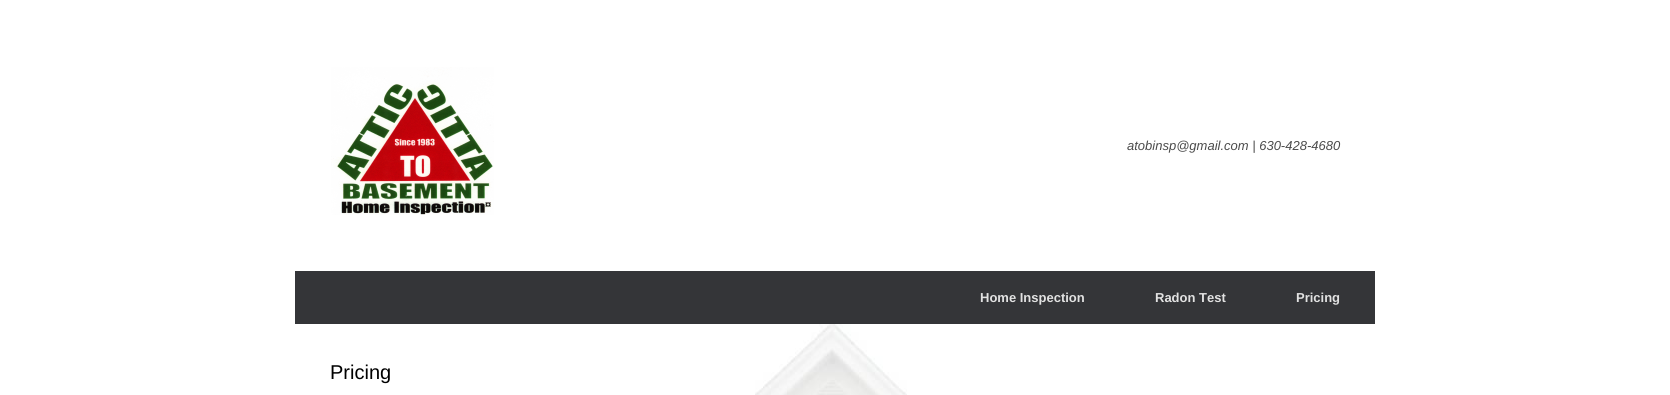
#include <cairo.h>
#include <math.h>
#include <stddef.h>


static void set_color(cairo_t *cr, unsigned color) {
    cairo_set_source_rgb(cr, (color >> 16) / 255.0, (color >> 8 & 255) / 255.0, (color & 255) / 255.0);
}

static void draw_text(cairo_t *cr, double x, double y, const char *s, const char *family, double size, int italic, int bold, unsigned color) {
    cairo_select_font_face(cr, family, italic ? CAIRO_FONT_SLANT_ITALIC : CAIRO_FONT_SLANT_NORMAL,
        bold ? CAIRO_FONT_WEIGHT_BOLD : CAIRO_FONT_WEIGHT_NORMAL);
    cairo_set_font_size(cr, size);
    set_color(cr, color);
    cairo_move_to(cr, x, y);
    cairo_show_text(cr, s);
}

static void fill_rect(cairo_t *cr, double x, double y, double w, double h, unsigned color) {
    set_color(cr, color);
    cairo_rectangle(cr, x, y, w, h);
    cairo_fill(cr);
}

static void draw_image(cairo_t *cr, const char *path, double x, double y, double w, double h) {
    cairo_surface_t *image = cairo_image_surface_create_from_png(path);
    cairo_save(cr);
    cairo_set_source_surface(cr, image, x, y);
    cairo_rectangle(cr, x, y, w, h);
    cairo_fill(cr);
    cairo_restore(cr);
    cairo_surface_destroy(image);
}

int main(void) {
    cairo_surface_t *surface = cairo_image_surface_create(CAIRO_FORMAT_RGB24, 1670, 395);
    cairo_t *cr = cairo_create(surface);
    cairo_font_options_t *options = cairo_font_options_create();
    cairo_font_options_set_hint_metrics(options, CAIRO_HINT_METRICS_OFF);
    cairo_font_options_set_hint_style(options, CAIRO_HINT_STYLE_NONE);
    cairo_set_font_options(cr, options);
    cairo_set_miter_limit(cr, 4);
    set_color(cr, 0xFFFFFF);
    cairo_paint(cr);
    draw_image(cr, "assets/img1.png", 331, 67, 163, 148);
    draw_text(cr, 1127, 150, "atobinsp@gmail.com | 630-428-4680", "Liberation Sans", 13, 1, 0, 0x4B4B4B);
    fill_rect(cr, 295, 271, 1080, 53, 0x343538);
    draw_text(cr, 980, 302, "Home Inspection", "Liberation Sans", 13, 0, 1, 0xE2E2E2);
    draw_text(cr, 1155, 302, "Radon Test", "Liberation Sans", 13, 0, 1, 0xE2E2E2);
    draw_text(cr, 1296, 302, "Pricing", "Liberation Sans", 13, 0, 1, 0xE2E2E2);
    draw_image(cr, "assets/img2.png", 755, 324, 152, 71);
    draw_text(cr, 330, 379, "Pricing", "Liberation Sans", 20, 0, 0, 0x000000);
    cairo_surface_write_to_png(surface, "output.png");
    cairo_font_options_destroy(options);
    cairo_destroy(cr);
    cairo_surface_destroy(surface);
    return 0;
}
